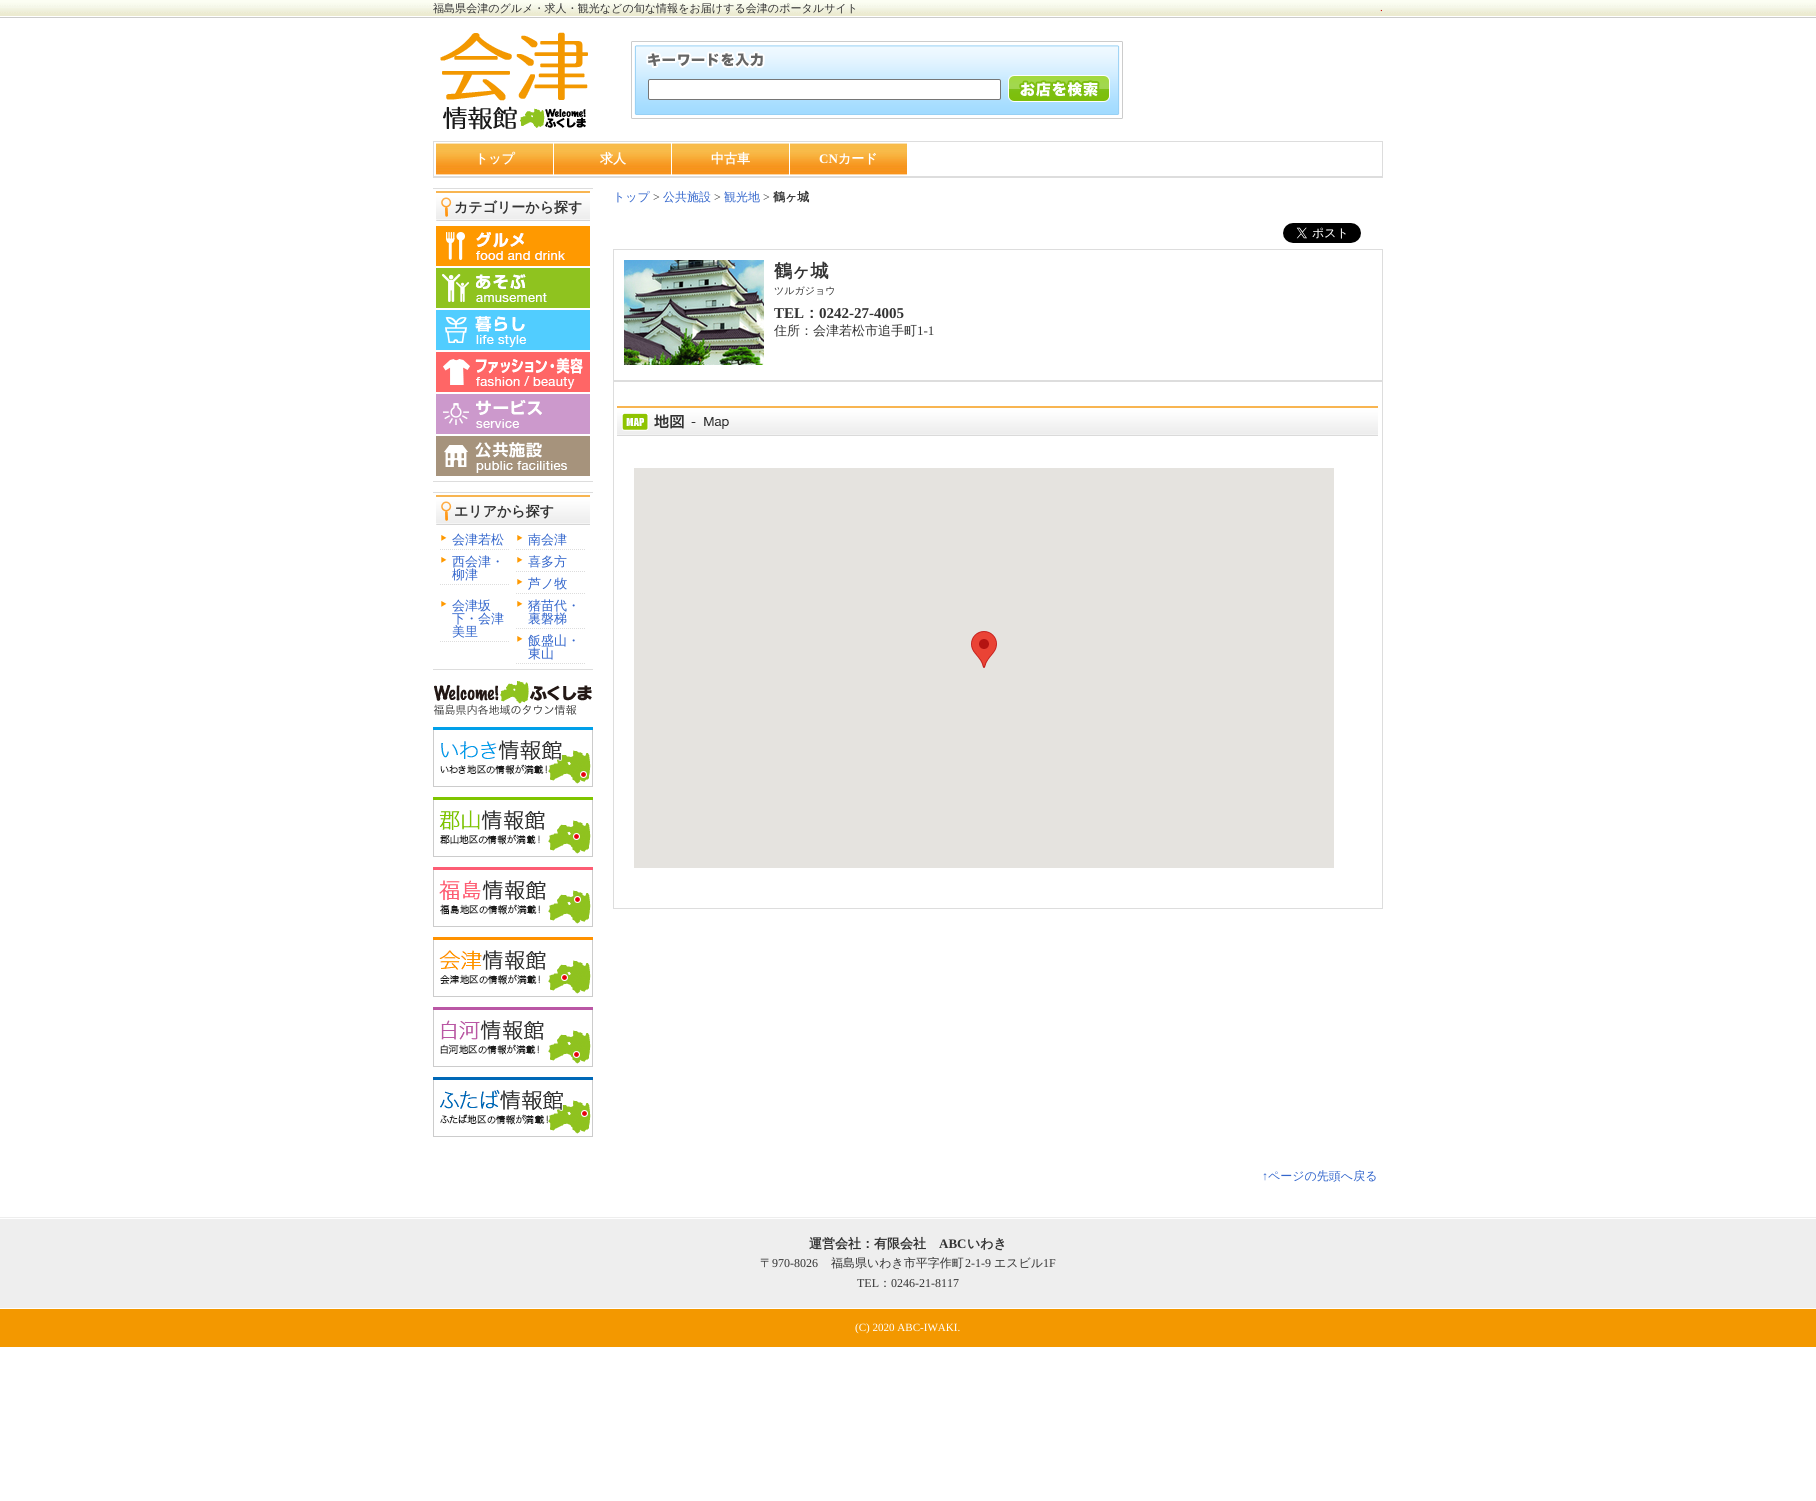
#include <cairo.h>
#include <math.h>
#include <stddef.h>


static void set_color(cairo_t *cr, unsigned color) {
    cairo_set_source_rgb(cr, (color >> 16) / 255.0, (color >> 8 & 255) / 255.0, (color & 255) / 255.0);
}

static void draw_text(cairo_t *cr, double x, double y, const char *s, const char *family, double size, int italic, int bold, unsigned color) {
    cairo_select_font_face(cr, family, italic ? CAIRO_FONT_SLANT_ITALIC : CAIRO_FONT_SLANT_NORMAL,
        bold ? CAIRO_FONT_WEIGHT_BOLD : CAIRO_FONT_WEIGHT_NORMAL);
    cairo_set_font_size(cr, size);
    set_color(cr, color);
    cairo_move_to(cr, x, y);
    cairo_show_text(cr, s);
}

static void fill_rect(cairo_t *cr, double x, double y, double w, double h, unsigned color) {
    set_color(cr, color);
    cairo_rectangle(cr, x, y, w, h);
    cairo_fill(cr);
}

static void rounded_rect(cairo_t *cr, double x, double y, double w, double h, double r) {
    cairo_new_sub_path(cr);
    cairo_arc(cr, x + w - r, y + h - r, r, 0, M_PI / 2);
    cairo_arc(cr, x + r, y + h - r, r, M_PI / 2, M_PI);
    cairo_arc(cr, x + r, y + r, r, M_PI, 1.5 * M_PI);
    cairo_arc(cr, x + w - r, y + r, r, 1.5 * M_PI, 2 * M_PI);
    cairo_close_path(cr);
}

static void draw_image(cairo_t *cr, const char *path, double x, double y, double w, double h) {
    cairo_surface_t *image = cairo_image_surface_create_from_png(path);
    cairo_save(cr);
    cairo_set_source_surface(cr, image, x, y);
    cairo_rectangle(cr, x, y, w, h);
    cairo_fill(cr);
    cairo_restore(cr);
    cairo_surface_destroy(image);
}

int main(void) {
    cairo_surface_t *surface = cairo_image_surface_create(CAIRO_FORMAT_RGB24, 1816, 1501);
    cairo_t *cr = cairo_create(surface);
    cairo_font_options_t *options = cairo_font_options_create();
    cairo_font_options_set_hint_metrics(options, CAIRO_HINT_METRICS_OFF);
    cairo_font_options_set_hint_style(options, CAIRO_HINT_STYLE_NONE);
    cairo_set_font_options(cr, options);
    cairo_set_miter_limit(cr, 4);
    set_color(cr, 0xFFFFFF);
    cairo_paint(cr);
    draw_image(cr, "assets/img1.png", 0, 0, 1816, 18);
    draw_text(cr, 433, 12, "福島県会津のグルメ・求人・観光などの旬な情報をお届けする会津のポータルサイト", "WenQuanYi Zen Hei Medium", 11.05, 0, 0, 0x333333);
    draw_text(cr, 1380, 11, ".", "Liberation Serif", 11.05, 0, 0, 0xCC0000);
    draw_image(cr, "assets/img2.png", 440, 32, 148, 98);
    draw_image(cr, "assets/img3.png", 631, 41, 492, 78);
    set_color(cr, 0xFFFFFF);
    rounded_rect(cr, 648.5, 79.5, 352, 20, 1.5);
    cairo_fill_preserve(cr);
    set_color(cr, 0x767676);
    cairo_set_line_width(cr, 1);
    cairo_stroke(cr);
    draw_image(cr, "assets/img4.png", 1008, 75, 102, 27);
    fill_rect(cr, 433, 141, 950, 1, 0xDDDDDD);
    fill_rect(cr, 1382, 141, 1, 37, 0xDDDDDD);
    fill_rect(cr, 433, 176, 950, 2, 0xDDDDDD);
    fill_rect(cr, 433, 141, 1, 37, 0xDDDDDD);
    draw_image(cr, "assets/img5.png", 436, 143, 117, 32);
    draw_text(cr, 475, 163, "トップ", "WenQuanYi Zen Hei", 13, 0, 1, 0xFFFFFF);
    draw_image(cr, "assets/img5.png", 554, 143, 117, 32);
    draw_text(cr, 600, 163, "求人", "WenQuanYi Zen Hei", 13, 0, 1, 0xFFFFFF);
    draw_image(cr, "assets/img5.png", 672, 143, 117, 32);
    draw_text(cr, 711, 163, "中古車", "WenQuanYi Zen Hei", 13, 0, 1, 0xFFFFFF);
    draw_image(cr, "assets/img5.png", 790, 143, 117, 32);
    draw_text(cr, 819, 163, "CN", "Liberation Serif", 13, 0, 1, 0xFFFFFF);
    draw_text(cr, 838, 163, "カード", "WenQuanYi Zen Hei", 13, 0, 1, 0xFFFFFF);
    fill_rect(cr, 433, 188, 160, 1, 0xDDDDDD);
    fill_rect(cr, 433, 481, 160, 1, 0xDDDDDD);
    draw_image(cr, "assets/img6.png", 436, 191, 154, 30);
    draw_text(cr, 454, 212, "カテゴリーから探す", "WenQuanYi Zen Hei", 14, 0, 1, 0x333333);
    draw_image(cr, "assets/img7.png", 436, 226, 154, 40);
    draw_image(cr, "assets/img8.png", 436, 268, 154, 40);
    draw_image(cr, "assets/img9.png", 436, 310, 154, 40);
    draw_image(cr, "assets/img10.png", 436, 352, 154, 40);
    draw_image(cr, "assets/img11.png", 436, 394, 154, 40);
    draw_image(cr, "assets/img12.png", 436, 436, 154, 40);
    fill_rect(cr, 433, 492, 160, 1, 0xDDDDDD);
    fill_rect(cr, 433, 669, 160, 1, 0xDDDDDD);
    draw_image(cr, "assets/img6.png", 436, 495, 154, 30);
    draw_text(cr, 454, 516, "エリアから探す", "WenQuanYi Zen Hei", 14, 0, 1, 0x333333);
    draw_image(cr, "assets/img13.png", 441, 535, 6, 6);
    cairo_new_path(cr);
    cairo_move_to(cr, 440, 549.5);
    cairo_line_to(cr, 509, 549.5);
    set_color(cr, 0xDDDDDD);
    cairo_set_dash(cr, (double[]){1, 1}, 2, 0);
    cairo_stroke(cr);
    draw_text(cr, 452, 544, "会津若松", "WenQuanYi Zen Hei Medium", 13, 0, 0, 0x3366CC);
    draw_image(cr, "assets/img13.png", 517, 535, 6, 6);
    cairo_new_path(cr);
    cairo_move_to(cr, 516, 549.5);
    cairo_line_to(cr, 585, 549.5);
    set_color(cr, 0xDDDDDD);
    cairo_stroke(cr);
    draw_text(cr, 528, 544, "南会津", "WenQuanYi Zen Hei Medium", 13, 0, 0, 0x3366CC);
    draw_image(cr, "assets/img13.png", 441, 557, 6, 6);
    cairo_new_path(cr);
    cairo_move_to(cr, 440, 584.5);
    cairo_line_to(cr, 509, 584.5);
    set_color(cr, 0xDDDDDD);
    cairo_stroke(cr);
    draw_text(cr, 452, 566, "西会津・", "WenQuanYi Zen Hei Medium", 13, 0, 0, 0x3366CC);
    draw_text(cr, 452, 579, "柳津", "WenQuanYi Zen Hei Medium", 13, 0, 0, 0x3366CC);
    draw_image(cr, "assets/img13.png", 517, 557, 6, 6);
    cairo_new_path(cr);
    cairo_move_to(cr, 516, 571.5);
    cairo_line_to(cr, 585, 571.5);
    set_color(cr, 0xDDDDDD);
    cairo_stroke(cr);
    draw_text(cr, 528, 566, "喜多方", "WenQuanYi Zen Hei Medium", 13, 0, 0, 0x3366CC);
    draw_image(cr, "assets/img13.png", 517, 579, 6, 6);
    cairo_new_path(cr);
    cairo_move_to(cr, 516, 593.5);
    cairo_line_to(cr, 585, 593.5);
    set_color(cr, 0xDDDDDD);
    cairo_stroke(cr);
    draw_text(cr, 528, 588, "芦ノ牧", "WenQuanYi Zen Hei Medium", 13, 0, 0, 0x3366CC);
    draw_image(cr, "assets/img13.png", 441, 601, 6, 6);
    cairo_new_path(cr);
    cairo_move_to(cr, 440, 641.5);
    cairo_line_to(cr, 509, 641.5);
    set_color(cr, 0xDDDDDD);
    cairo_stroke(cr);
    draw_text(cr, 452, 610, "会津坂", "WenQuanYi Zen Hei Medium", 13, 0, 0, 0x3366CC);
    draw_text(cr, 452, 623, "下・会津", "WenQuanYi Zen Hei Medium", 13, 0, 0, 0x3366CC);
    draw_text(cr, 452, 636, "美里", "WenQuanYi Zen Hei Medium", 13, 0, 0, 0x3366CC);
    draw_image(cr, "assets/img13.png", 517, 601, 6, 6);
    cairo_new_path(cr);
    cairo_move_to(cr, 516, 628.5);
    cairo_line_to(cr, 585, 628.5);
    set_color(cr, 0xDDDDDD);
    cairo_stroke(cr);
    draw_text(cr, 528, 610, "猪苗代・", "WenQuanYi Zen Hei Medium", 13, 0, 0, 0x3366CC);
    draw_text(cr, 528, 623, "裏磐梯", "WenQuanYi Zen Hei Medium", 13, 0, 0, 0x3366CC);
    draw_image(cr, "assets/img13.png", 517, 636, 6, 6);
    cairo_new_path(cr);
    cairo_move_to(cr, 516, 663.5);
    cairo_line_to(cr, 585, 663.5);
    set_color(cr, 0xDDDDDD);
    cairo_stroke(cr);
    draw_text(cr, 528, 645, "飯盛山・", "WenQuanYi Zen Hei Medium", 13, 0, 0, 0x3366CC);
    draw_text(cr, 528, 658, "東山", "WenQuanYi Zen Hei Medium", 13, 0, 0, 0x3366CC);
    draw_image(cr, "assets/img14.png", 433, 681, 159, 34);
    draw_image(cr, "assets/img15.png", 433, 727, 160, 60);
    draw_image(cr, "assets/img16.png", 433, 797, 160, 60);
    draw_image(cr, "assets/img17.png", 433, 867, 160, 60);
    draw_image(cr, "assets/img18.png", 433, 937, 160, 60);
    draw_image(cr, "assets/img19.png", 433, 1007, 160, 60);
    draw_image(cr, "assets/img20.png", 433, 1077, 160, 60);
    draw_text(cr, 613, 201, "トップ", "WenQuanYi Zen Hei Medium", 12, 0, 0, 0x3366CC);
    draw_text(cr, 653, 201, ">", "Liberation Serif", 12, 0, 0, 0x333333);
    draw_text(cr, 663, 201, "公共施設", "WenQuanYi Zen Hei Medium", 12, 0, 0, 0x3366CC);
    draw_text(cr, 714, 201, ">", "Liberation Serif", 12, 0, 0, 0x333333);
    draw_text(cr, 724, 201, "観光地", "WenQuanYi Zen Hei Medium", 12, 0, 0, 0x3366CC);
    draw_text(cr, 763, 201, ">", "Liberation Serif", 12, 0, 0, 0x333333);
    draw_text(cr, 773, 201, "鶴ヶ城", "WenQuanYi Zen Hei", 12, 0, 1, 0x333333);
    draw_image(cr, "assets/img21.png", 1283, 223, 78, 20);
    cairo_rectangle(cr, 613.5, 249.5, 769, 131);
    set_color(cr, 0xDDDDDD);
    cairo_set_dash(cr, NULL, 0, 0);
    cairo_stroke(cr);
    draw_image(cr, "assets/img22.png", 624, 260, 140, 105);
    draw_text(cr, 774, 277, "鶴ヶ城", "WenQuanYi Zen Hei", 18, 0, 1, 0x333333);
    draw_text(cr, 774, 294, "ツルガジョウ", "WenQuanYi Zen Hei Medium", 10, 0, 0, 0x333333);
    draw_text(cr, 774, 318, "TEL", "Liberation Serif", 15, 0, 1, 0x333333);
    draw_text(cr, 804, 318, "：", "WenQuanYi Zen Hei", 15, 0, 1, 0x333333);
    draw_text(cr, 819, 318, "0242-27-4005", "Liberation Serif", 15, 0, 1, 0x333333);
    draw_text(cr, 774, 335, "住所：会津若松市追手町", "WenQuanYi Zen Hei Medium", 13, 0, 0, 0x333333);
    draw_text(cr, 917, 335, "1-1", "Liberation Serif", 13, 0, 0, 0x333333);
    cairo_rectangle(cr, 613.5, 381.5, 769, 527);
    set_color(cr, 0xDDDDDD);
    cairo_stroke(cr);
    draw_image(cr, "assets/img23.png", 617, 406, 761, 30);
    fill_rect(cr, 634, 468, 700, 400, 0xE5E3DF);
    draw_image(cr, "assets/img24.png", 971, 631, 26, 37);
    draw_text(cr, 1262, 1180, "↑", "Liberation Serif", 12, 0, 0, 0x3366CC);
    draw_text(cr, 1268, 1180, "ページの先頭へ戻る", "WenQuanYi Zen Hei Medium", 12, 0, 0, 0x3366CC);
    fill_rect(cr, 0, 1217, 1816, 1, 0xEEEEEE);
    fill_rect(cr, 0, 1219, 1816, 89, 0xEEEEEE);
    draw_text(cr, 809, 1248, "運営会社：有限会社", "WenQuanYi Zen Hei", 13, 0, 1, 0x333333);
    draw_text(cr, 939, 1248, "ABC", "Liberation Serif", 13, 0, 1, 0x333333);
    draw_text(cr, 967, 1248, "いわき", "WenQuanYi Zen Hei", 13, 0, 1, 0x333333);
    draw_text(cr, 760, 1267, "〒", "WenQuanYi Zen Hei Medium", 12, 0, 0, 0x333333);
    draw_text(cr, 772, 1267, "970-8026", "Liberation Serif", 12, 0, 0, 0x333333);
    draw_text(cr, 831, 1267, "福島県いわき市平字作町", "WenQuanYi Zen Hei Medium", 12, 0, 0, 0x333333);
    draw_text(cr, 965, 1267, "2-1-9", "Liberation Serif", 12, 0, 0, 0x333333);
    draw_text(cr, 994, 1267, "エスビル", "WenQuanYi Zen Hei Medium", 12, 0, 0, 0x333333);
    draw_text(cr, 1043, 1267, "1F", "Liberation Serif", 12, 0, 0, 0x333333);
    draw_text(cr, 857, 1287, "TEL", "Liberation Serif", 12, 0, 0, 0x333333);
    draw_text(cr, 879, 1287, "：", "WenQuanYi Zen Hei Medium", 12, 0, 0, 0x333333);
    draw_text(cr, 891, 1287, "0246-21-8117", "Liberation Serif", 12, 0, 0, 0x333333);
    fill_rect(cr, 0, 1309, 1816, 38, 0xF39800);
    draw_text(cr, 855, 1331, "(C) 2020 ABC-IWAKI.", "Liberation Serif", 11.05, 0, 0, 0xFFFFFF);
    cairo_surface_write_to_png(surface, "output.png");
    cairo_font_options_destroy(options);
    cairo_destroy(cr);
    cairo_surface_destroy(surface);
    return 0;
}
